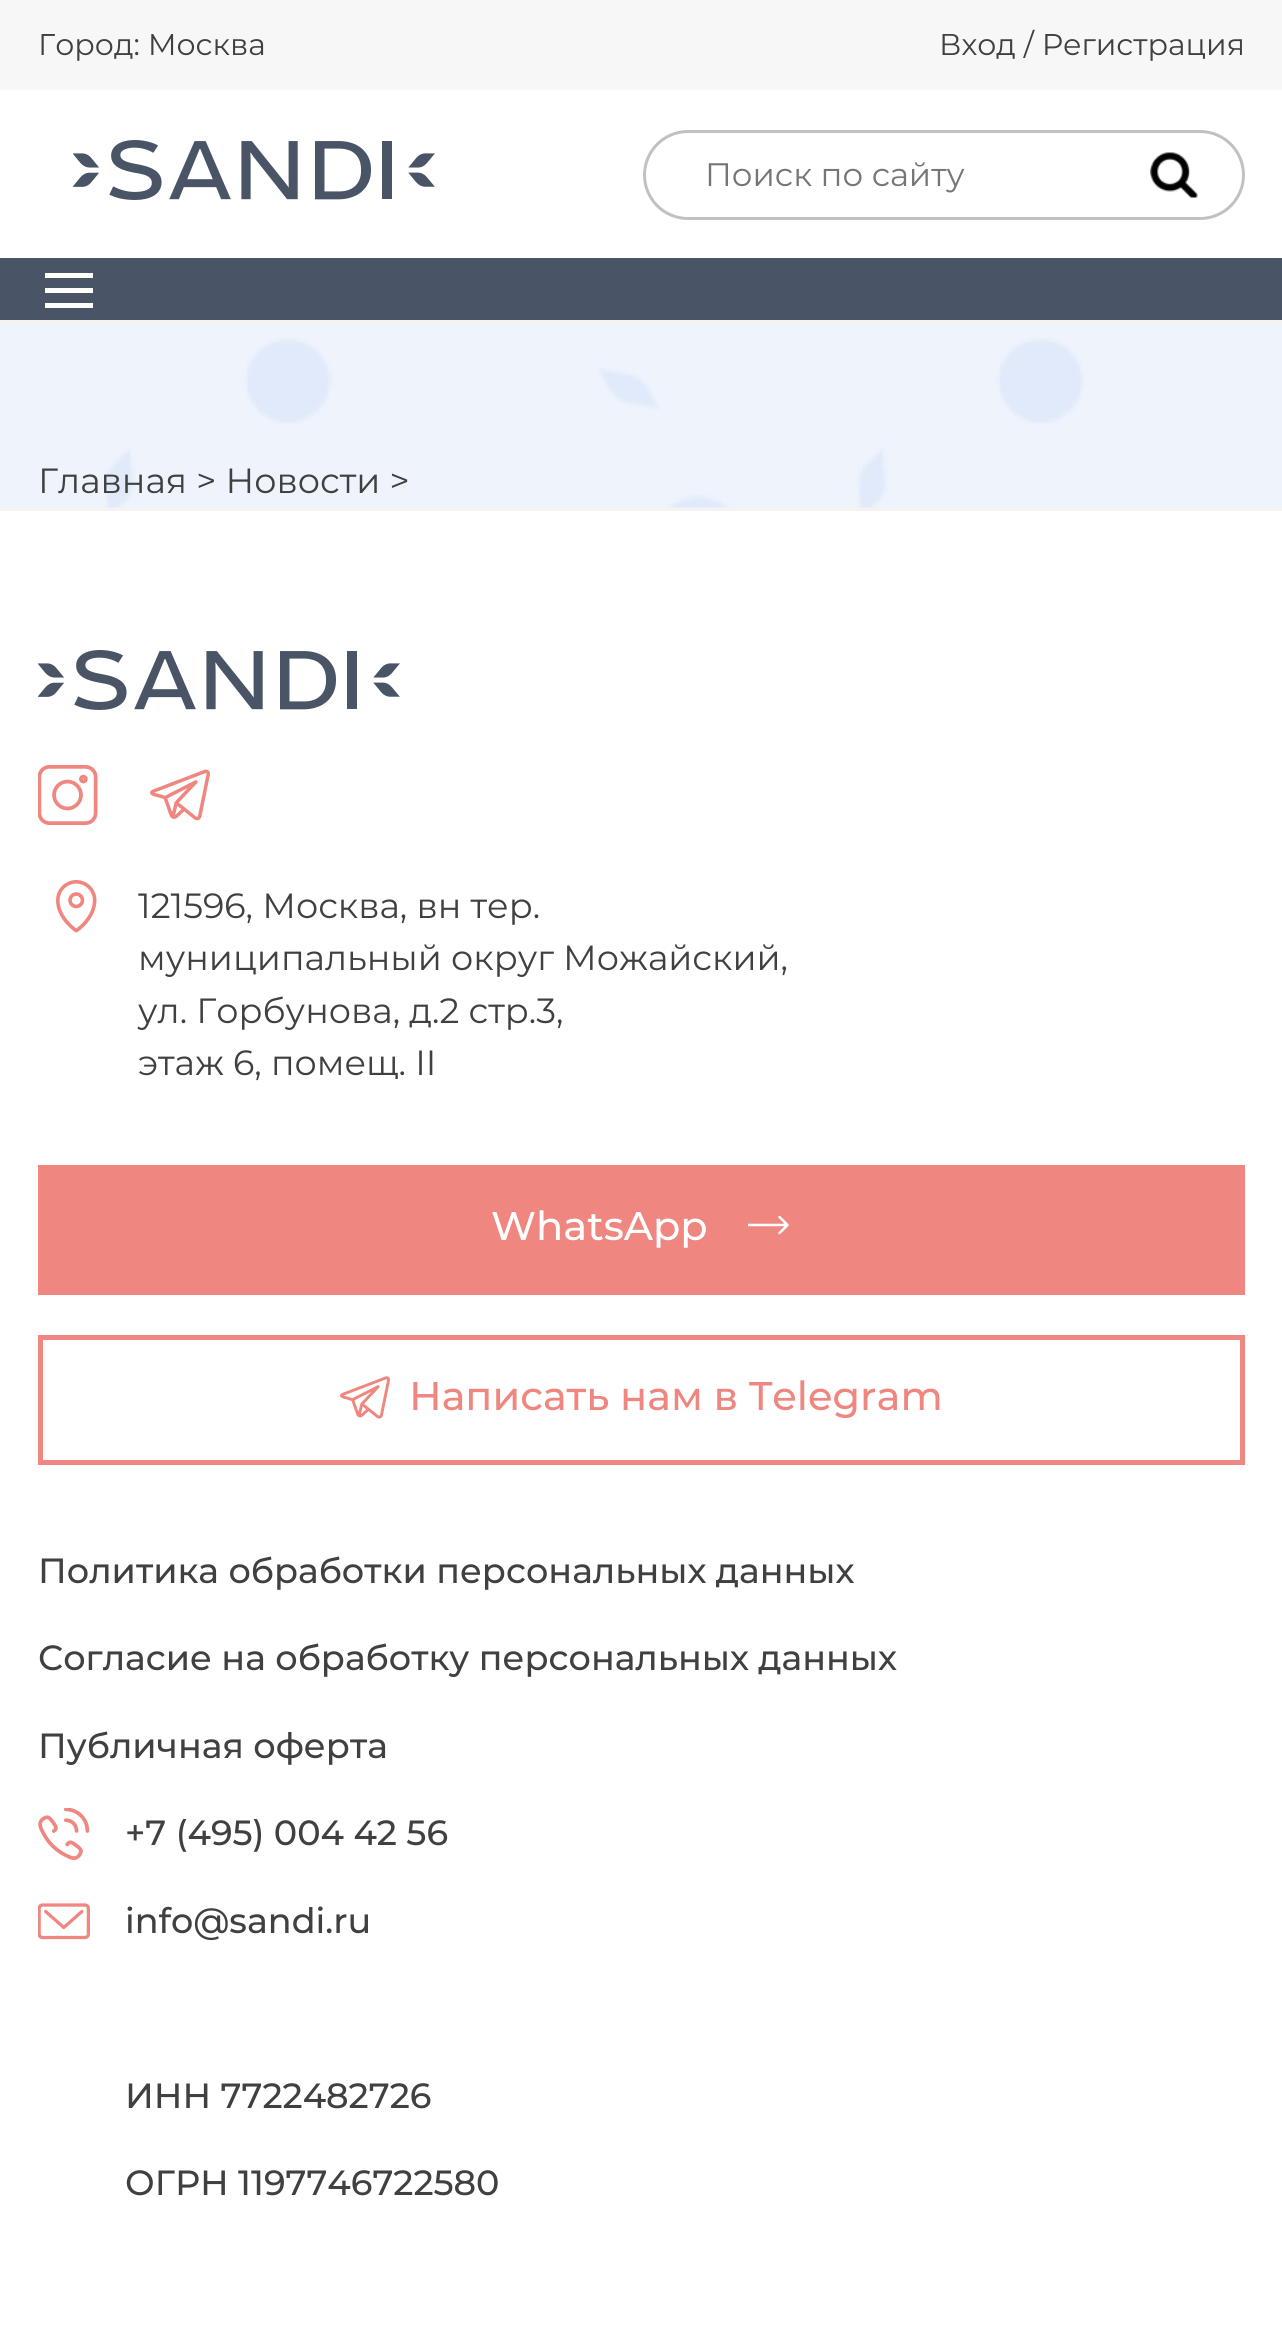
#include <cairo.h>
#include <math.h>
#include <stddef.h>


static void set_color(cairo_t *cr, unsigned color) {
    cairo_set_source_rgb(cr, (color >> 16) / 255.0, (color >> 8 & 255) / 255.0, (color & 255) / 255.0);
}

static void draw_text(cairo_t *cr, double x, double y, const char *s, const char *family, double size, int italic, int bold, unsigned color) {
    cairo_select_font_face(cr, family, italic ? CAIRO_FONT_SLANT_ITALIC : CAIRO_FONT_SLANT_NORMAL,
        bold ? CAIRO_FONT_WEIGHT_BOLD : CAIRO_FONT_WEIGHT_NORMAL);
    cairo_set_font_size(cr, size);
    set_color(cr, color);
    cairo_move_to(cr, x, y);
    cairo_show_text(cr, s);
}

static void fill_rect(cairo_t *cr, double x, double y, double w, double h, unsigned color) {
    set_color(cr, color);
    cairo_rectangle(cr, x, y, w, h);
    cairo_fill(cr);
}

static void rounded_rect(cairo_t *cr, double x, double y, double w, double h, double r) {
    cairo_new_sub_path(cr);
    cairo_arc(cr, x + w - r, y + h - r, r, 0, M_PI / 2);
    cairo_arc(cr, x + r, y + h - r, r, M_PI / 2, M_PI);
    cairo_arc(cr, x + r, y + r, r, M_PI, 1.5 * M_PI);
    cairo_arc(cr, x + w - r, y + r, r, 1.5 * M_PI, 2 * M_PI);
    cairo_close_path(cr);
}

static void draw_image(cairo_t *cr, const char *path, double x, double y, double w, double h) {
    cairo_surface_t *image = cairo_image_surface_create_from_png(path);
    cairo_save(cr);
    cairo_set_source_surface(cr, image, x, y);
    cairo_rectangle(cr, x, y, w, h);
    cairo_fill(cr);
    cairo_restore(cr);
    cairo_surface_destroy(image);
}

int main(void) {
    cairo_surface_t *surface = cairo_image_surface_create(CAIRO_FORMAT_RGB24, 1282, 2349);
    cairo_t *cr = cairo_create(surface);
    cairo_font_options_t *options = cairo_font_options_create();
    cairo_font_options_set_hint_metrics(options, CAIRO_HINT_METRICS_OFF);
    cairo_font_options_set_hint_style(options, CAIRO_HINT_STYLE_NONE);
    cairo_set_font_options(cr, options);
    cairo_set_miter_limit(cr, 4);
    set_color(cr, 0xFFFFFF);
    cairo_paint(cr);
    fill_rect(cr, 0, 320, 1282, 3, 0xF5F2EF);
    fill_rect(cr, 0, 0, 1282, 90, 0xF7F7F7);
    draw_text(cr, 38, 55, "Город: Москва", "Montserrat", 30, 0, 0, 0x404040);
    draw_text(cr, 939, 55, "Вход / Регистрация", "Montserrat", 30, 0, 0, 0x404040);
    draw_image(cr, "assets/img1.png", 73, 140, 362, 60);
    rounded_rect(cr, 644.5, 131.5, 599, 87, 43.5);
    set_color(cr, 0xC1C1C1);
    cairo_set_line_width(cr, 3);
    cairo_stroke(cr);
    draw_text(cr, 705, 186, "Поиск по сайту", "Montserrat", 32.5, 0, 0, 0x757575);
    draw_image(cr, "assets/img2.png", 1150, 152, 48, 46);
    fill_rect(cr, 0, 258, 1282, 62, 0x495567);
    fill_rect(cr, 45, 273, 48, 5, 0xFFFFFF);
    fill_rect(cr, 45, 288, 48, 5, 0xFFFFFF);
    fill_rect(cr, 45, 303, 48, 5, 0xFFFFFF);
    fill_rect(cr, 0, 323, 1282, 185, 0xEEF3FC);
    draw_image(cr, "assets/img3.png", 105, 338, 979, 170);
    draw_text(cr, 38, 493, "Главная > Новости >", "Montserrat", 35, 0, 0, 0x404040);
    fill_rect(cr, 0, 508, 1282, 3, 0xF5F2EF);
    draw_image(cr, "assets/img1.png", 38, 650, 362, 60);
    draw_image(cr, "assets/img4.png", 38, 765, 60, 60);
    draw_image(cr, "assets/img5.png", 150, 769, 60, 52);
    draw_image(cr, "assets/img6.png", 56, 880, 41, 53);
    draw_text(cr, 138, 918, "121596, Москва, вн тер.", "Montserrat", 35, 0, 0, 0x404040);
    draw_text(cr, 138, 970, "муниципальный округ Можайский,", "Montserrat", 35, 0, 0, 0x404040);
    draw_text(cr, 138, 1023, "ул. Горбунова, д.2 стр.3,", "Montserrat", 35, 0, 0, 0x404040);
    draw_text(cr, 138, 1075, "этаж 6, помещ. II", "Montserrat", 35, 0, 0, 0x404040);
    fill_rect(cr, 38, 1165, 1207, 130, 0xEF8680);
    draw_text(cr, 491, 1240, "WhatsApp", "Montserrat Medium", 40, 0, 0, 0xFFFFFF);
    draw_image(cr, "assets/img7.png", 748, 1215, 41, 20);
    cairo_rectangle(cr, 40.5, 1337.5, 1202, 125);
    set_color(cr, 0xEF8680);
    cairo_set_line_width(cr, 5);
    cairo_stroke(cr);
    draw_image(cr, "assets/img8.png", 340, 1376, 50, 43);
    draw_text(cr, 409, 1410, "Написать нам в Telegram", "Montserrat Medium", 40, 0, 0, 0xEF8680);
    draw_text(cr, 38, 1583, "Политика обработки персональных данных", "Montserrat Medium", 35, 0, 0, 0x404040);
    draw_text(cr, 38, 1670, "Согласие на обработку персональных данных", "Montserrat Medium", 35, 0, 0, 0x404040);
    draw_text(cr, 38, 1758, "Публичная оферта", "Montserrat Medium", 35, 0, 0, 0x404040);
    draw_image(cr, "assets/img9.png", 38, 1808, 52, 52);
    draw_text(cr, 125, 1845, "+7 (495) 004 42 56", "Montserrat Medium", 35, 0, 0, 0x404040);
    draw_image(cr, "assets/img10.png", 38, 1903, 52, 37);
    draw_text(cr, 125, 1933, "info@sandi.ru", "Montserrat Medium", 35, 0, 0, 0x404040);
    draw_text(cr, 125, 2108, "ИНН 7722482726", "Montserrat Medium", 35, 0, 0, 0x404040);
    draw_text(cr, 125, 2195, "ОГРН 1197746722580", "Montserrat Medium", 35, 0, 0, 0x404040);
    cairo_surface_write_to_png(surface, "output.png");
    cairo_font_options_destroy(options);
    cairo_destroy(cr);
    cairo_surface_destroy(surface);
    return 0;
}
